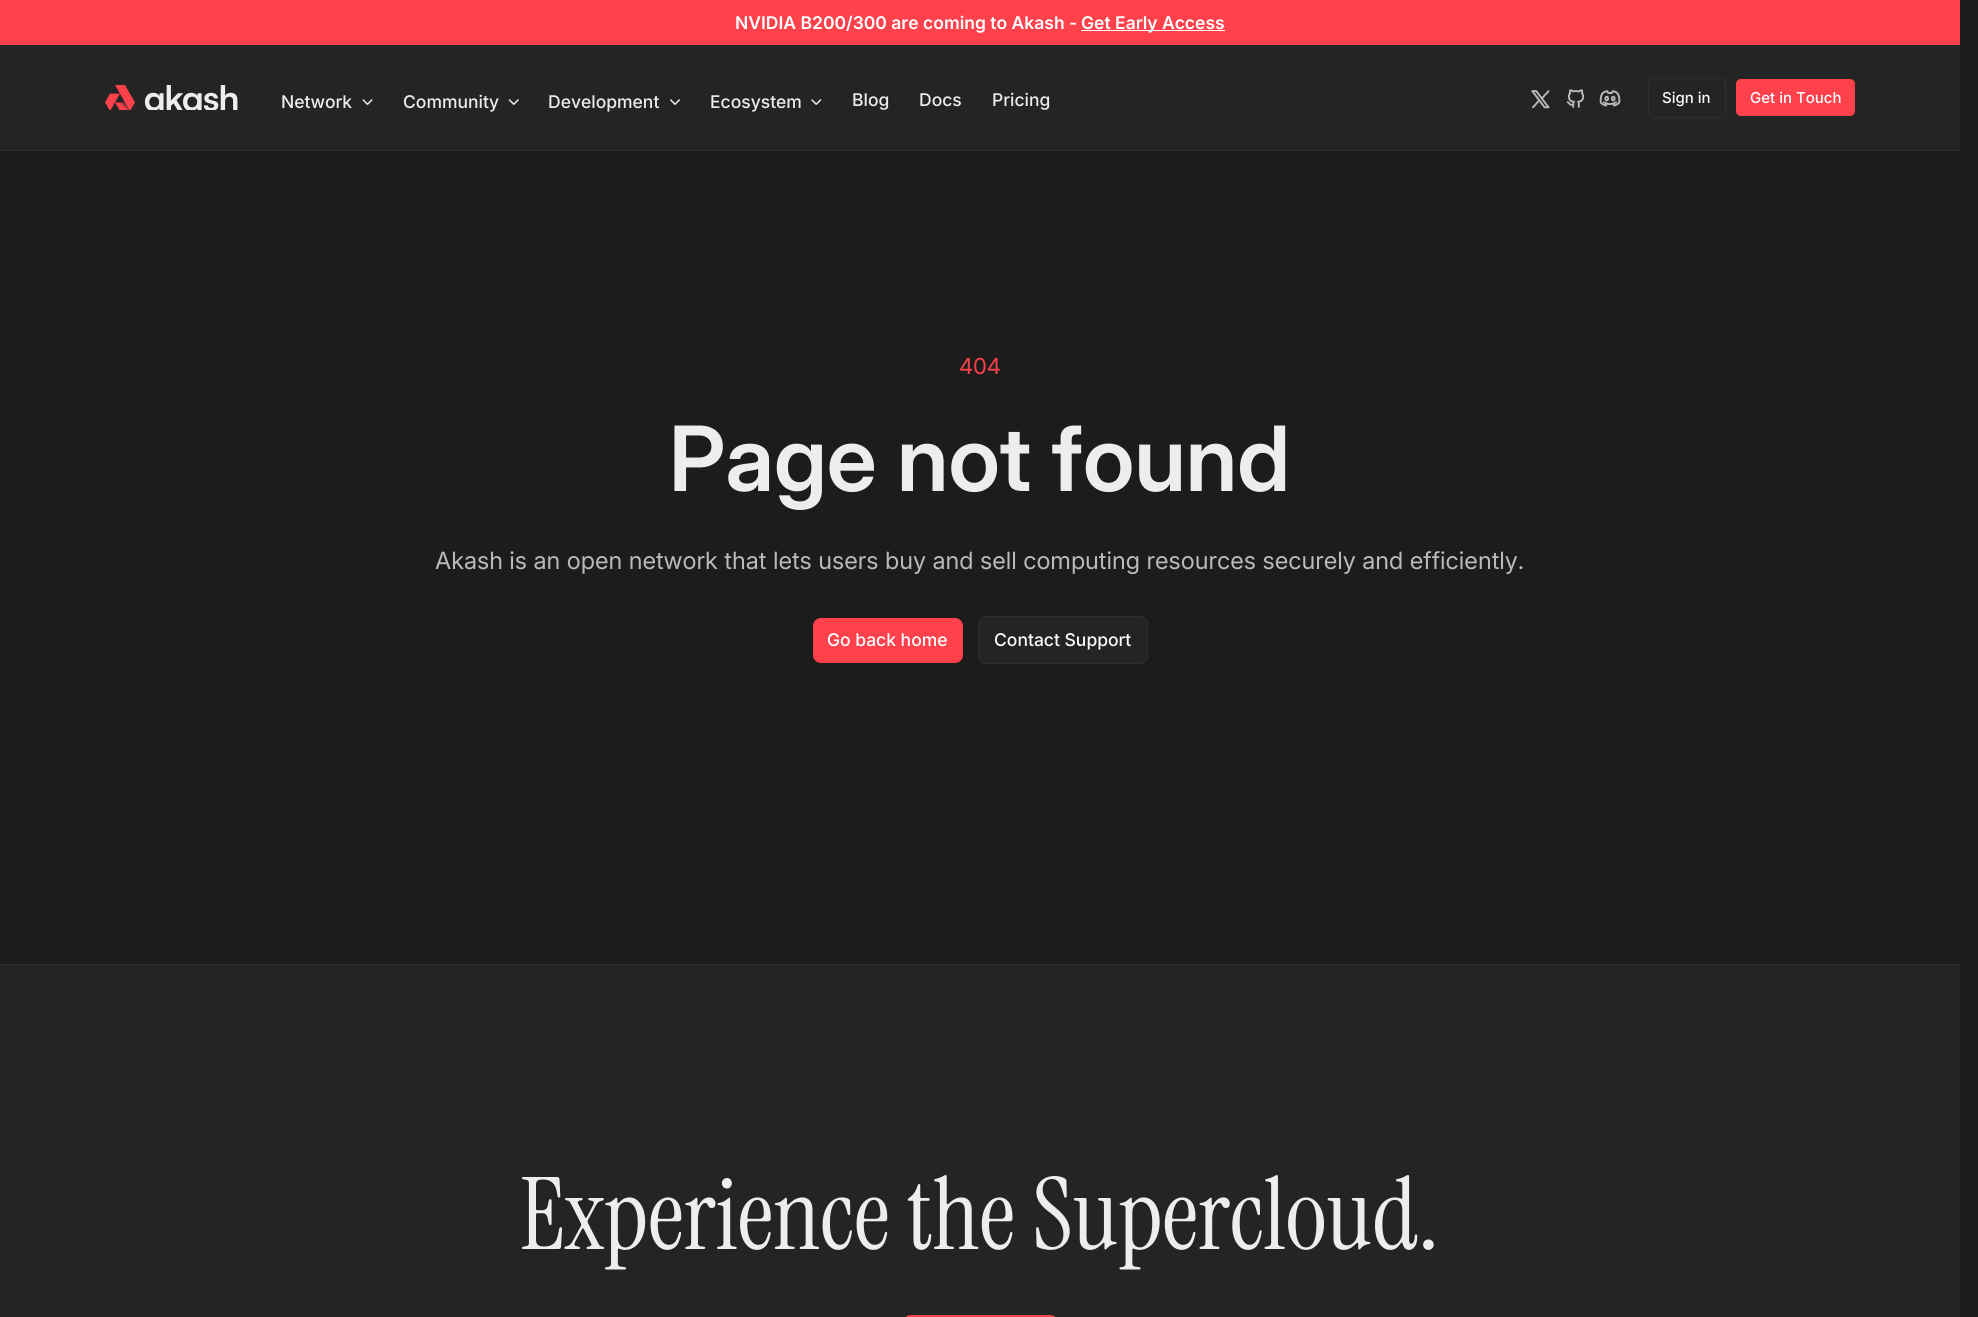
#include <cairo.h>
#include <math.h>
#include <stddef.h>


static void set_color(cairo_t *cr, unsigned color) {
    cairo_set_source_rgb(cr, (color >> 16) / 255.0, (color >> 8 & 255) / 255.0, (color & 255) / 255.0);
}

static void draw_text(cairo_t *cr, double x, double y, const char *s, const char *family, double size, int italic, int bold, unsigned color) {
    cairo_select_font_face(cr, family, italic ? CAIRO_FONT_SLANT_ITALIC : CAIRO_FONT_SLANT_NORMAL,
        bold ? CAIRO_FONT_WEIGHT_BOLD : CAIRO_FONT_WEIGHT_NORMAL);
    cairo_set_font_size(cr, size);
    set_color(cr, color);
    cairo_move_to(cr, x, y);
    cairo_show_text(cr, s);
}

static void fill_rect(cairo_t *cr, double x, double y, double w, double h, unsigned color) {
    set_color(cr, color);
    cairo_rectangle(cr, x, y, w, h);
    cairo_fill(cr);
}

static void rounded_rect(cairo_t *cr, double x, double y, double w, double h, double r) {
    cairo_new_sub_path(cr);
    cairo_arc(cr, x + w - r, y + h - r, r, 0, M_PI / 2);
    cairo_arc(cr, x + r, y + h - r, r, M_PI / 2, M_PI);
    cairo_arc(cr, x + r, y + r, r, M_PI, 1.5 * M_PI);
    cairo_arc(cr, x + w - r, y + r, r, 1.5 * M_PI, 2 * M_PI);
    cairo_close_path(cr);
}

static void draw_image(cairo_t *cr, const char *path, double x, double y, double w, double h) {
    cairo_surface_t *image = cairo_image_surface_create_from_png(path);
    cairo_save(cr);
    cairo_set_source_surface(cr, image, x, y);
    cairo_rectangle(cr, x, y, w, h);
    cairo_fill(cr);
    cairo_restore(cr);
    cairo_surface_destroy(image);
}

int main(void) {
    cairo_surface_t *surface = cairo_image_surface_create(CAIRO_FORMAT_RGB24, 1978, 1317);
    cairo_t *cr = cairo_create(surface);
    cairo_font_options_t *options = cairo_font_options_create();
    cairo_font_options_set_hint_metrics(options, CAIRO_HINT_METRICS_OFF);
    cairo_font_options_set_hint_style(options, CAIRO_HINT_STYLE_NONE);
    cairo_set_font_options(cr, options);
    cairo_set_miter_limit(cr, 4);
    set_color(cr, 0x1C1C1C);
    cairo_paint(cr);
    fill_rect(cr, 0, 0, 1960, 45, 0xFF414C);
    draw_text(cr, 735, 29, "NVIDIA B200/300 are coming to Akash -", "Inter SemiBold", 17.5, 0, 0, 0xFFFFFF);
    fill_rect(cr, 1081, 30, 144, 1, 0xFFFFFF);
    draw_text(cr, 1081, 29, "Get Early Access", "Inter SemiBold", 17.5, 0, 0, 0xFFFFFF);
    fill_rect(cr, 0, 45, 1960, 105, 0x242424);
    fill_rect(cr, 0, 150, 1960, 1, 0x2E2E2E);
    draw_image(cr, "assets/img1.png", 105, 85, 133, 25);
    draw_text(cr, 281, 108, "Network", "Inter Medium", 17.5, 0, 0, 0xEDEDED);
    draw_image(cr, "assets/img2.png", 362, 99, 11, 6);
    draw_text(cr, 403, 108, "Community", "Inter Medium", 17.5, 0, 0, 0xEDEDED);
    draw_image(cr, "assets/img3.png", 508, 99, 11, 6);
    draw_text(cr, 548, 108, "Development", "Inter Medium", 17.5, 0, 0, 0xEDEDED);
    draw_image(cr, "assets/img4.png", 670, 99, 10, 6);
    draw_text(cr, 710, 108, "Ecosystem", "Inter Medium", 17.5, 0, 0, 0xEDEDED);
    draw_image(cr, "assets/img5.png", 811, 99, 11, 6);
    draw_text(cr, 852, 106, "Blog", "Inter Medium", 17.5, 0, 0, 0xEDEDED);
    draw_text(cr, 919, 106, "Docs", "Inter Medium", 17.5, 0, 0, 0xEDEDED);
    draw_text(cr, 992, 106, "Pricing", "Inter Medium", 17.5, 0, 0, 0xEDEDED);
    draw_image(cr, "assets/img6.png", 1531, 90, 19, 19);
    draw_image(cr, "assets/img7.png", 1566, 89, 19, 19);
    draw_image(cr, "assets/img8.png", 1599, 90, 22, 17);
    rounded_rect(cr, 1648.5, 78.5, 77, 39, 4.5);
    set_color(cr, 0x2E2E2E);
    cairo_set_line_width(cr, 1);
    cairo_stroke(cr);
    draw_text(cr, 1662, 103, "Sign in", "Inter Medium", 15, 0, 0, 0xFBFAF9);
    set_color(cr, 0xFF414C);
    rounded_rect(cr, 1736, 79, 119, 37, 5);
    cairo_fill(cr);
    draw_text(cr, 1750, 103, "Get in Touch", "Inter Medium", 15, 0, 0, 0xFFFFFF);
    draw_text(cr, 959, 374, "404", "Inter", 22, 0, 0, 0xFF414C);
    draw_text(cr, 669, 491, "Page not found", "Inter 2 SemiBold", 90, 0, 0, 0xEDEDED);
    draw_text(cr, 435, 569, "Akash is an open network that lets users buy and sell computing resources securely and efficiently.", "Inter 2", 23.75, 0, 0, 0xBABABA);
    set_color(cr, 0xFF414C);
    rounded_rect(cr, 813, 618, 150, 45, 8);
    cairo_fill(cr);
    draw_text(cr, 827, 646, "Go back home", "Inter Medium", 17.5, 0, 0, 0xFFFFFF);
    set_color(cr, 0x242424);
    rounded_rect(cr, 978.5, 616.5, 169, 47, 7.5);
    cairo_fill_preserve(cr);
    set_color(cr, 0x2E2E2E);
    cairo_stroke(cr);
    draw_text(cr, 994, 646, "Contact Support", "Inter Medium", 17.5, 0, 0, 0xFBFAF9);
    fill_rect(cr, 0, 965, 1960, 352, 0x242424);
    fill_rect(cr, 0, 964, 1960, 1, 0x2E2E2E);
    draw_text(cr, 520, 1249, "Experience the Supercloud.", "Instrument Serif", 100, 0, 0, 0xEDEDED);
    set_color(cr, 0xFF414C);
    rounded_rect(cr, 903, 1315, 155, 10, 8);
    cairo_fill(cr);
    cairo_surface_write_to_png(surface, "output.png");
    cairo_font_options_destroy(options);
    cairo_destroy(cr);
    cairo_surface_destroy(surface);
    return 0;
}
